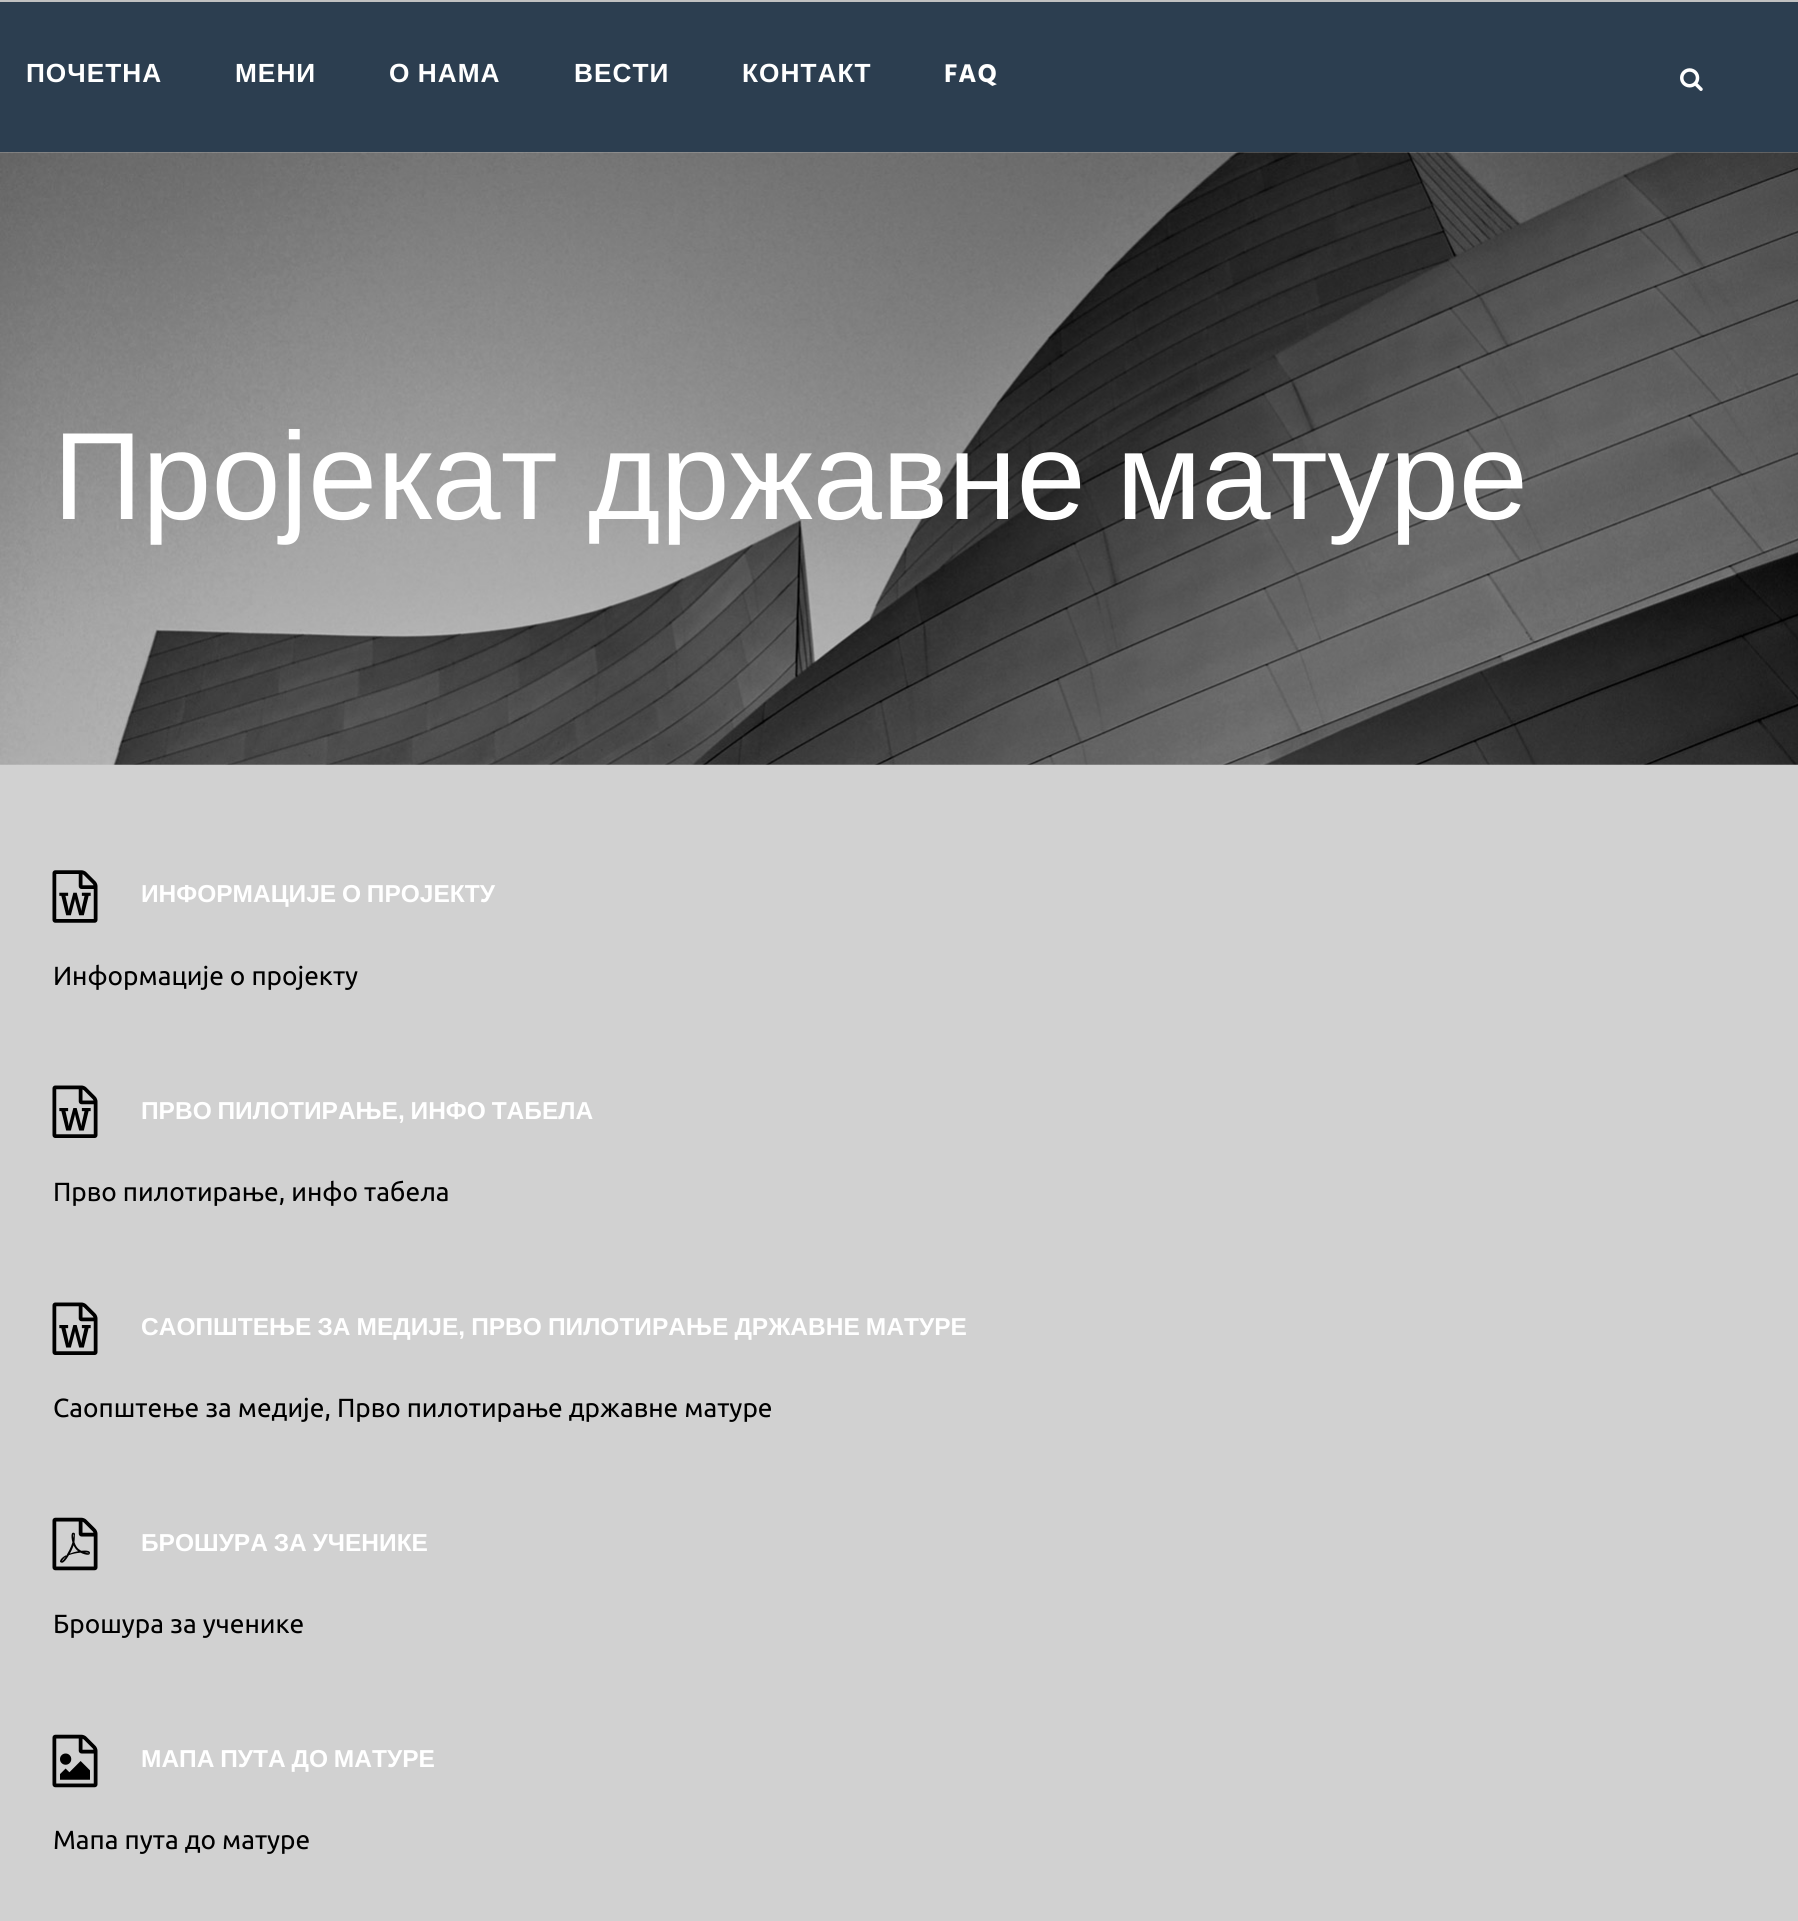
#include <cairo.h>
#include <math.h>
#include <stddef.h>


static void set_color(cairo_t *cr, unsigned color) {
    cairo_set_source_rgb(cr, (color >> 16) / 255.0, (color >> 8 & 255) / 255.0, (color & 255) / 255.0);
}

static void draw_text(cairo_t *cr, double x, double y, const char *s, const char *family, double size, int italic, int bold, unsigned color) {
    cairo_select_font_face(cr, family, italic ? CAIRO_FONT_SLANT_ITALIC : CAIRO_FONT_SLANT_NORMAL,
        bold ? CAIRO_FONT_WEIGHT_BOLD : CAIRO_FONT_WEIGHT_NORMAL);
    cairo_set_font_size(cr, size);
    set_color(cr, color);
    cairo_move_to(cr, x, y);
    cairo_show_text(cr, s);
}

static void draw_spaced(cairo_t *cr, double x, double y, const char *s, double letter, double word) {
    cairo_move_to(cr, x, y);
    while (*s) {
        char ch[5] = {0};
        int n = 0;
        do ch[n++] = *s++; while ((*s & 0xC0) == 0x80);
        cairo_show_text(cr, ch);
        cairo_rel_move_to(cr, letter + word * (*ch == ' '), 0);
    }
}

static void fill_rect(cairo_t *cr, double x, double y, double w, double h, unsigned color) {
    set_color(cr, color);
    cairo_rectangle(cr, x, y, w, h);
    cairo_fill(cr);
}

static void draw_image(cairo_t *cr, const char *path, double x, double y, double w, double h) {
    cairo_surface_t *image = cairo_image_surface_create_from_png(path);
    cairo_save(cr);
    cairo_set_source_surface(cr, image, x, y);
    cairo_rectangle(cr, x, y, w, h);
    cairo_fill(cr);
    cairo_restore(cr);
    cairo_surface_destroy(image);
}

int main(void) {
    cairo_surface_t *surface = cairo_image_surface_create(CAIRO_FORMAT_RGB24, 1798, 1921);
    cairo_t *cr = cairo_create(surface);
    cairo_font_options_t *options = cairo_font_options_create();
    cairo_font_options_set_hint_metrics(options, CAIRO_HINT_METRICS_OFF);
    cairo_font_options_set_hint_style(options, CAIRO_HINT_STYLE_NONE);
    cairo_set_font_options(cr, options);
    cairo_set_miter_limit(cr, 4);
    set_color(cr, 0xD1D1D1);
    cairo_paint(cr);
    fill_rect(cr, 0, 0, 1798, 2, 0xC1C1C1);
    fill_rect(cr, 0, 2, 1798, 150, 0x2C3E50);
    cairo_select_font_face(cr, "Liberation Sans", CAIRO_FONT_SLANT_NORMAL, CAIRO_FONT_WEIGHT_BOLD);
    cairo_set_font_size(cr, 26.25);
    set_color(cr, 0xFFFFFF);
    draw_spaced(cr, 26, 82, "ПОЧЕТНА", 1, 0);
    draw_spaced(cr, 235, 82, "МЕНИ", 1, 0);
    draw_spaced(cr, 389, 82, "О НАМА", 1, -1);
    draw_spaced(cr, 574, 82, "ВЕСТИ", 1, 0);
    draw_spaced(cr, 742, 82, "КОНТАКТ", 1, 0);
    cairo_select_font_face(cr, "Hind", CAIRO_FONT_SLANT_NORMAL, CAIRO_FONT_WEIGHT_BOLD);
    draw_spaced(cr, 944, 82, "FAQ", 1, 0);
    draw_image(cr, "assets/img1.png", 1680, 68, 23, 23);
    draw_image(cr, "assets/img2.png", 0, 152, 1798, 613);
    cairo_select_font_face(cr, "Liberation Sans", CAIRO_FONT_SLANT_NORMAL, CAIRO_FONT_WEIGHT_NORMAL);
    cairo_set_font_size(cr, 124.25);
    draw_spaced(cr, 53, 519, "Пројекат државне матуре", 0, -4);
    draw_image(cr, "assets/img3.png", 52, 870, 46, 53);
    cairo_select_font_face(cr, "Liberation Sans", CAIRO_FONT_SLANT_NORMAL, CAIRO_FONT_WEIGHT_BOLD);
    cairo_set_font_size(cr, 24.5);
    draw_spaced(cr, 141, 902, "ИНФОРМАЦИЈЕ О ПРОЈЕКТУ", 0, -1);
    draw_text(cr, 53, 985, "Информације о пројекту", "Ubuntu", 26.25, 0, 0, 0x000000);
    draw_image(cr, "assets/img4.png", 52, 1085, 46, 53);
    cairo_select_font_face(cr, "Liberation Sans", CAIRO_FONT_SLANT_NORMAL, CAIRO_FONT_WEIGHT_BOLD);
    cairo_set_font_size(cr, 24.5);
    set_color(cr, 0xFFFFFF);
    draw_spaced(cr, 141, 1119, "ПРВО ПИЛОТИРАЊЕ, ИНФО ТАБЕЛА", 0, -1);
    draw_text(cr, 53, 1201, "Прво пилотирање, инфо табела", "Ubuntu", 26.25, 0, 0, 0x000000);
    draw_image(cr, "assets/img4.png", 52, 1302, 46, 53);
    cairo_select_font_face(cr, "Liberation Sans", CAIRO_FONT_SLANT_NORMAL, CAIRO_FONT_WEIGHT_BOLD);
    cairo_set_font_size(cr, 24.5);
    set_color(cr, 0xFFFFFF);
    draw_spaced(cr, 141, 1335, "САОПШТЕЊЕ ЗА МЕДИЈЕ, ПРВО ПИЛОТИРАЊЕ ДРЖАВНЕ МАТУРЕ", 0, -0.75);
    draw_text(cr, 53, 1417, "Саопштење за медије, Прво пилотирање државне матуре", "Ubuntu", 26.25, 0, 0, 0x000000);
    draw_image(cr, "assets/img5.png", 52, 1517, 46, 54);
    cairo_select_font_face(cr, "Liberation Sans", CAIRO_FONT_SLANT_NORMAL, CAIRO_FONT_WEIGHT_BOLD);
    cairo_set_font_size(cr, 24.5);
    set_color(cr, 0xFFFFFF);
    draw_spaced(cr, 141, 1551, "БРОШУРА ЗА УЧЕНИКЕ", 0, -1);
    draw_text(cr, 53, 1633, "Брошура за ученике", "Ubuntu", 26.25, 0, 0, 0x000000);
    draw_image(cr, "assets/img6.png", 52, 1734, 46, 54);
    cairo_select_font_face(cr, "Liberation Sans", CAIRO_FONT_SLANT_NORMAL, CAIRO_FONT_WEIGHT_BOLD);
    cairo_set_font_size(cr, 24.5);
    set_color(cr, 0xFFFFFF);
    draw_spaced(cr, 141, 1767, "МАПА ПУТА ДО МАТУРЕ", 0, -1);
    draw_text(cr, 53, 1849, "Мапа пута до матуре", "Ubuntu", 26.25, 0, 0, 0x000000);
    cairo_surface_write_to_png(surface, "output.png");
    cairo_font_options_destroy(options);
    cairo_destroy(cr);
    cairo_surface_destroy(surface);
    return 0;
}
